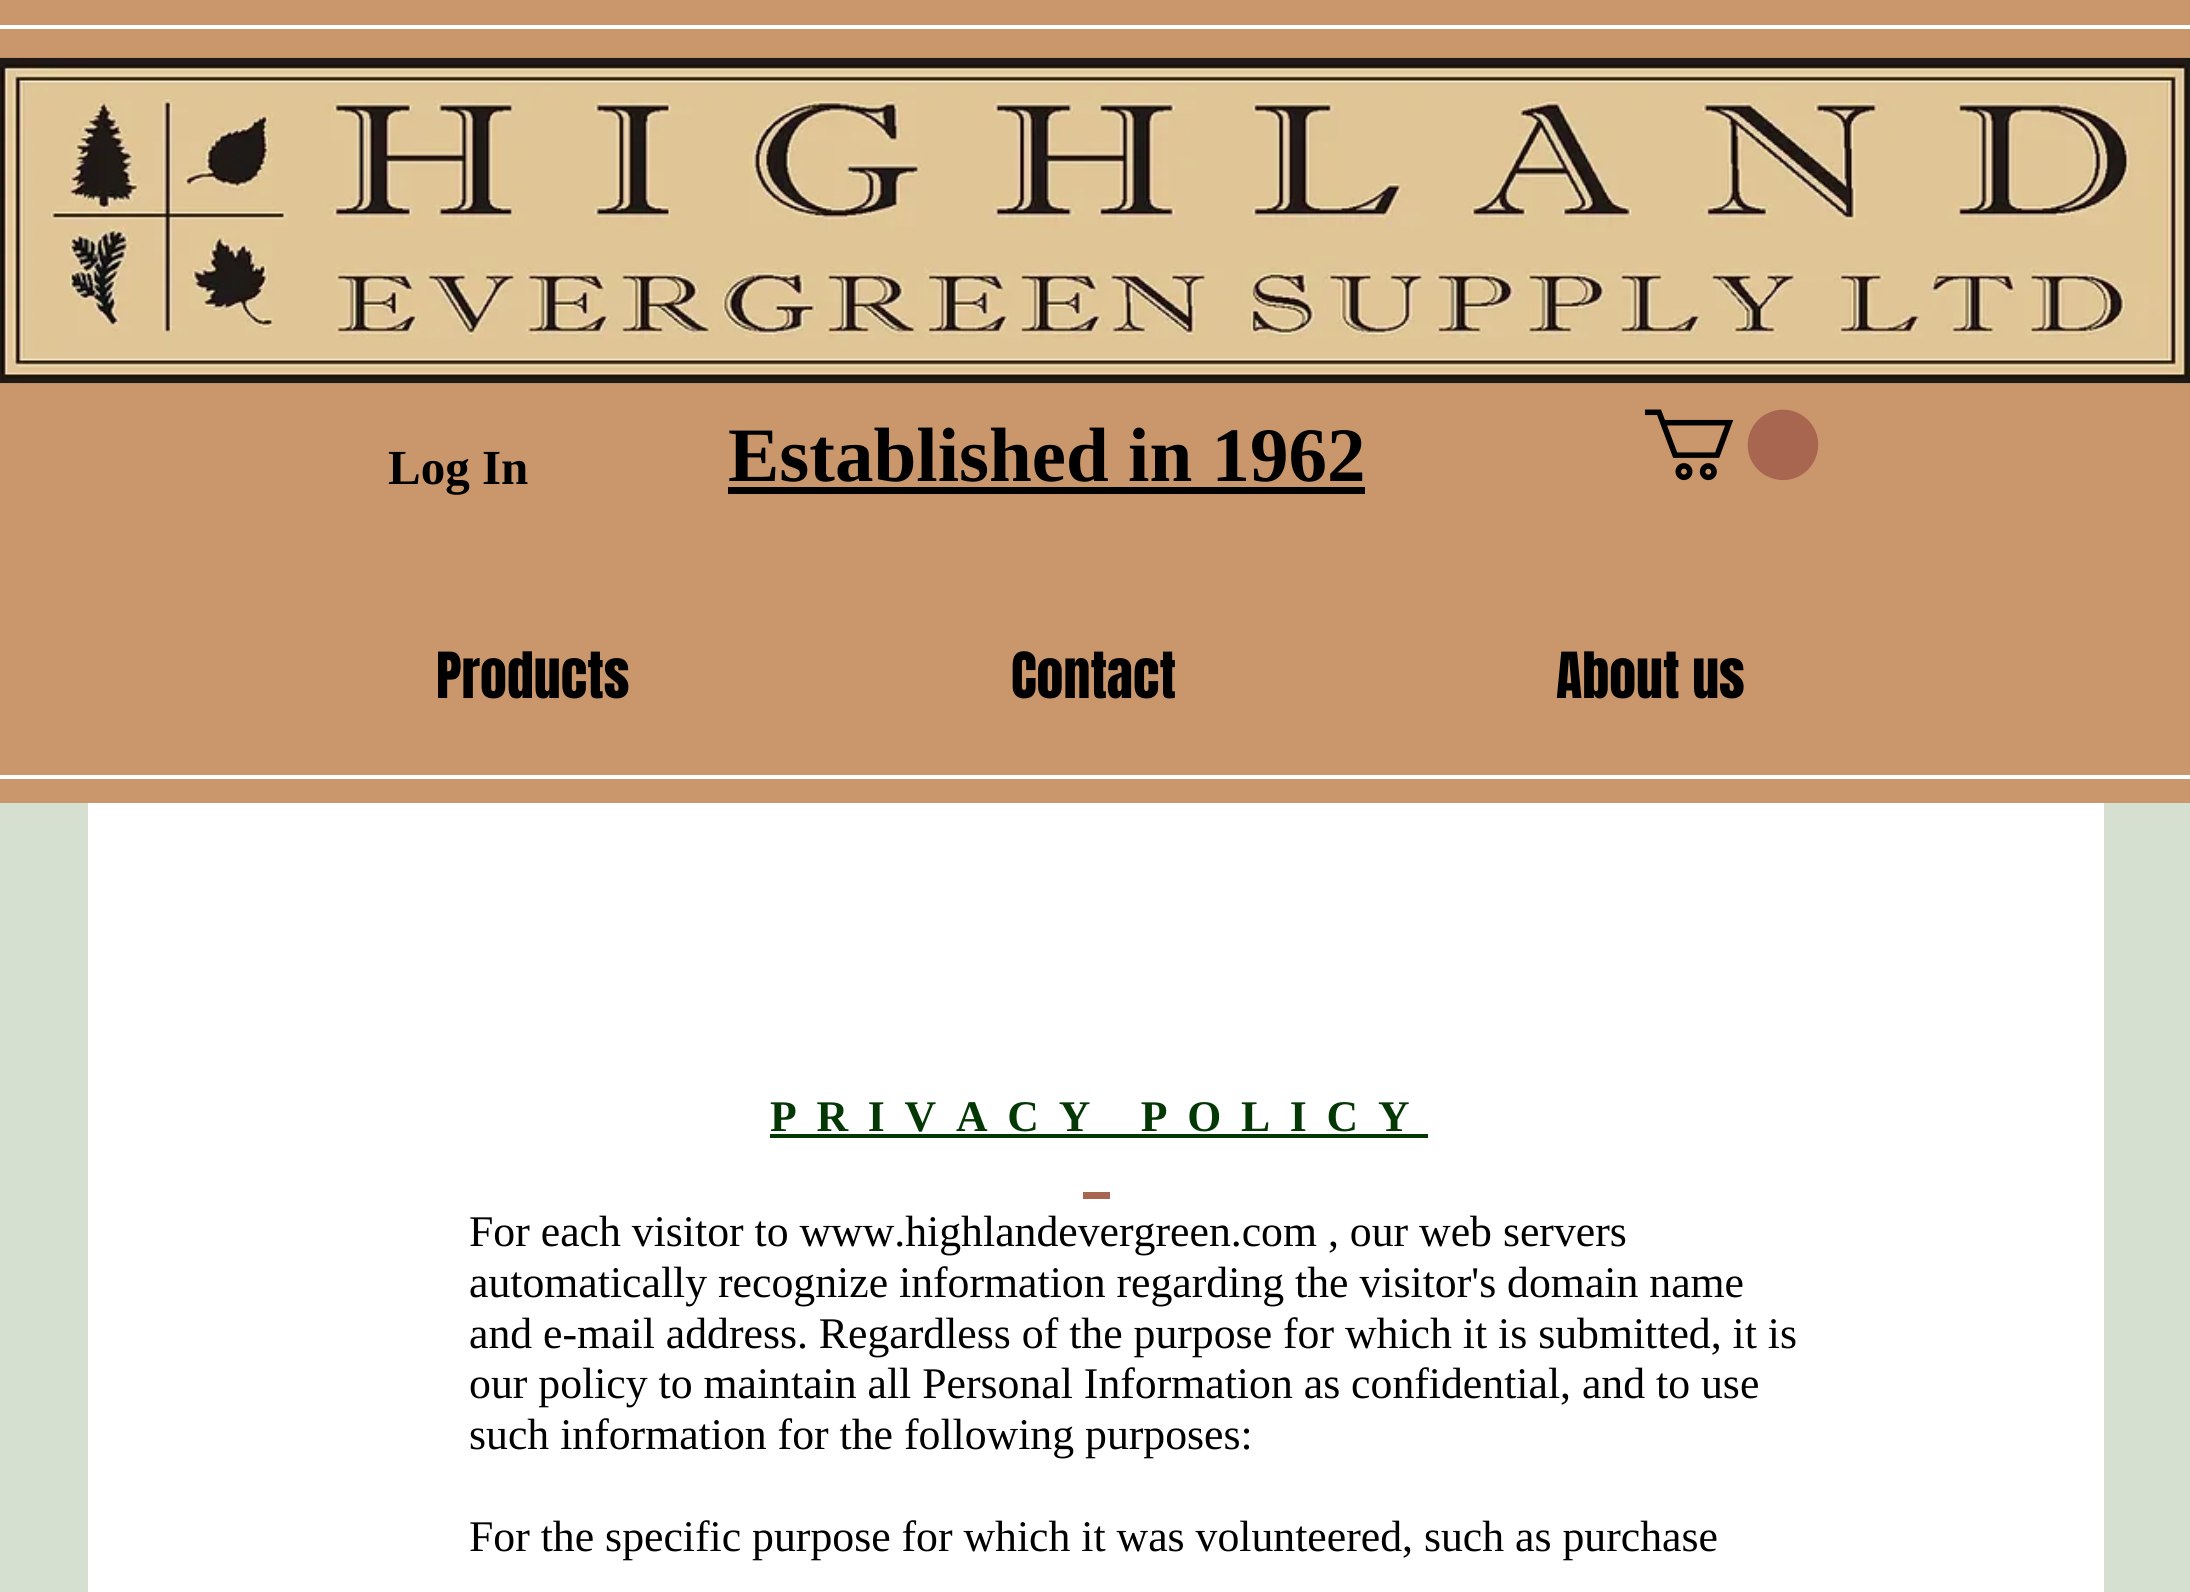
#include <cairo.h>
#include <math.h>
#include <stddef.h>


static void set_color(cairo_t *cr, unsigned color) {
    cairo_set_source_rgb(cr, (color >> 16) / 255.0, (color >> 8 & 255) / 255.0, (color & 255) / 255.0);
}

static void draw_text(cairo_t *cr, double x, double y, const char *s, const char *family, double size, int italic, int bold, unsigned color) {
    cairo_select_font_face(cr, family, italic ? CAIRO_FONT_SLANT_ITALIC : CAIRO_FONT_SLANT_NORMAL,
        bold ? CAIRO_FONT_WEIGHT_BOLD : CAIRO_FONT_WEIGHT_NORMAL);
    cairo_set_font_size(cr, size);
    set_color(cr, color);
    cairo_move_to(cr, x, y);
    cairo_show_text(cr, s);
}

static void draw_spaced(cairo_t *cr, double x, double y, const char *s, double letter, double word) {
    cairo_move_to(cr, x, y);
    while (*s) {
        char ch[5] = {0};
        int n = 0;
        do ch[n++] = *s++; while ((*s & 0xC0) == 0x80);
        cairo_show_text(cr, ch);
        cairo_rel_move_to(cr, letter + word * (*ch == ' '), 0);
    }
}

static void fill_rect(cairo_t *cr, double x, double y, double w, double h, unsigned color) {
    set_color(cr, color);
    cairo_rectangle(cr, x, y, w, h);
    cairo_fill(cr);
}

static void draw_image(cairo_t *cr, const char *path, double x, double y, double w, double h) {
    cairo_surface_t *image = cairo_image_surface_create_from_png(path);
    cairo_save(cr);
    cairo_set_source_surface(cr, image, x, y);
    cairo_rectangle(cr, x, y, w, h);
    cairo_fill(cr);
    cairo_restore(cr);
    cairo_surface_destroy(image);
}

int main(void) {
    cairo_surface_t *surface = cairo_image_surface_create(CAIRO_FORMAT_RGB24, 2190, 1592);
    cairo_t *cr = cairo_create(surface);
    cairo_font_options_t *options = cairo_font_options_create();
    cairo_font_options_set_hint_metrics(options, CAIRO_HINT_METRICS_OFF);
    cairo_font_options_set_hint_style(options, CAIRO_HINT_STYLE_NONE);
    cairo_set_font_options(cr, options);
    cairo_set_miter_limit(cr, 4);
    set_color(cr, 0xD6E0D1);
    cairo_paint(cr);
    fill_rect(cr, 0, 0, 2190, 803, 0xC9976B);
    fill_rect(cr, 0, 25, 2190, 4, 0xFFFFFF);
    fill_rect(cr, 0, 775, 2190, 4, 0xFFFFFF);
    draw_image(cr, "assets/img1.png", 0, 57, 2190, 327);
    draw_text(cr, 388, 484, "Log In", "Liberation Serif", 49, 0, 1, 0x000000);
    draw_text(cr, 728, 481, "Established in 1962", "Liberation Serif", 77, 0, 1, 0x000000);
    fill_rect(cr, 728, 487, 637, 7, 0x000000);
    draw_image(cr, "assets/img2.png", 1645, 409, 174, 72);
    draw_text(cr, 436, 698, "Products", "Anton", 54, 0, 0, 0x000000);
    draw_text(cr, 1011, 698, "Contact", "Anton", 54, 0, 0, 0x000000);
    draw_text(cr, 1556, 698, "About us", "Anton", 54, 0, 0, 0x000000);
    fill_rect(cr, 88, 803, 2016, 789, 0xFFFFFF);
    cairo_select_font_face(cr, "Liberation Serif", CAIRO_FONT_SLANT_NORMAL, CAIRO_FONT_WEIGHT_BOLD);
    cairo_set_font_size(cr, 43.75);
    set_color(cr, 0x033805);
    draw_spaced(cr, 770, 1131, "PRIVACY POLICY", 19.75, 0);
    fill_rect(cr, 770, 1134, 658, 4, 0x033805);
    fill_rect(cr, 1083, 1192, 27, 7, 0xA86550);
    draw_text(cr, 469, 1246, "For each visitor to www.highlandevergreen.com , our web servers", "Liberation Serif", 43.75, 0, 0, 0x000000);
    draw_text(cr, 469, 1297, "automatically recognize information regarding the visitor's domain name", "Liberation Serif", 43.75, 0, 0, 0x000000);
    draw_text(cr, 469, 1348, "and e-mail address. Regardless of the purpose for which it is submitted, it is", "Liberation Serif", 43.75, 0, 0, 0x000000);
    draw_text(cr, 469, 1398, "our policy to maintain all Personal Information as confidential, and to use", "Liberation Serif", 43.75, 0, 0, 0x000000);
    draw_text(cr, 469, 1449, "such information for the following purposes:", "Liberation Serif", 43.75, 0, 0, 0x000000);
    draw_text(cr, 469, 1551, "For the specific purpose for which it was volunteered, such as purchase", "Liberation Serif", 43.75, 0, 0, 0x000000);
    cairo_surface_write_to_png(surface, "output.png");
    cairo_font_options_destroy(options);
    cairo_destroy(cr);
    cairo_surface_destroy(surface);
    return 0;
}
